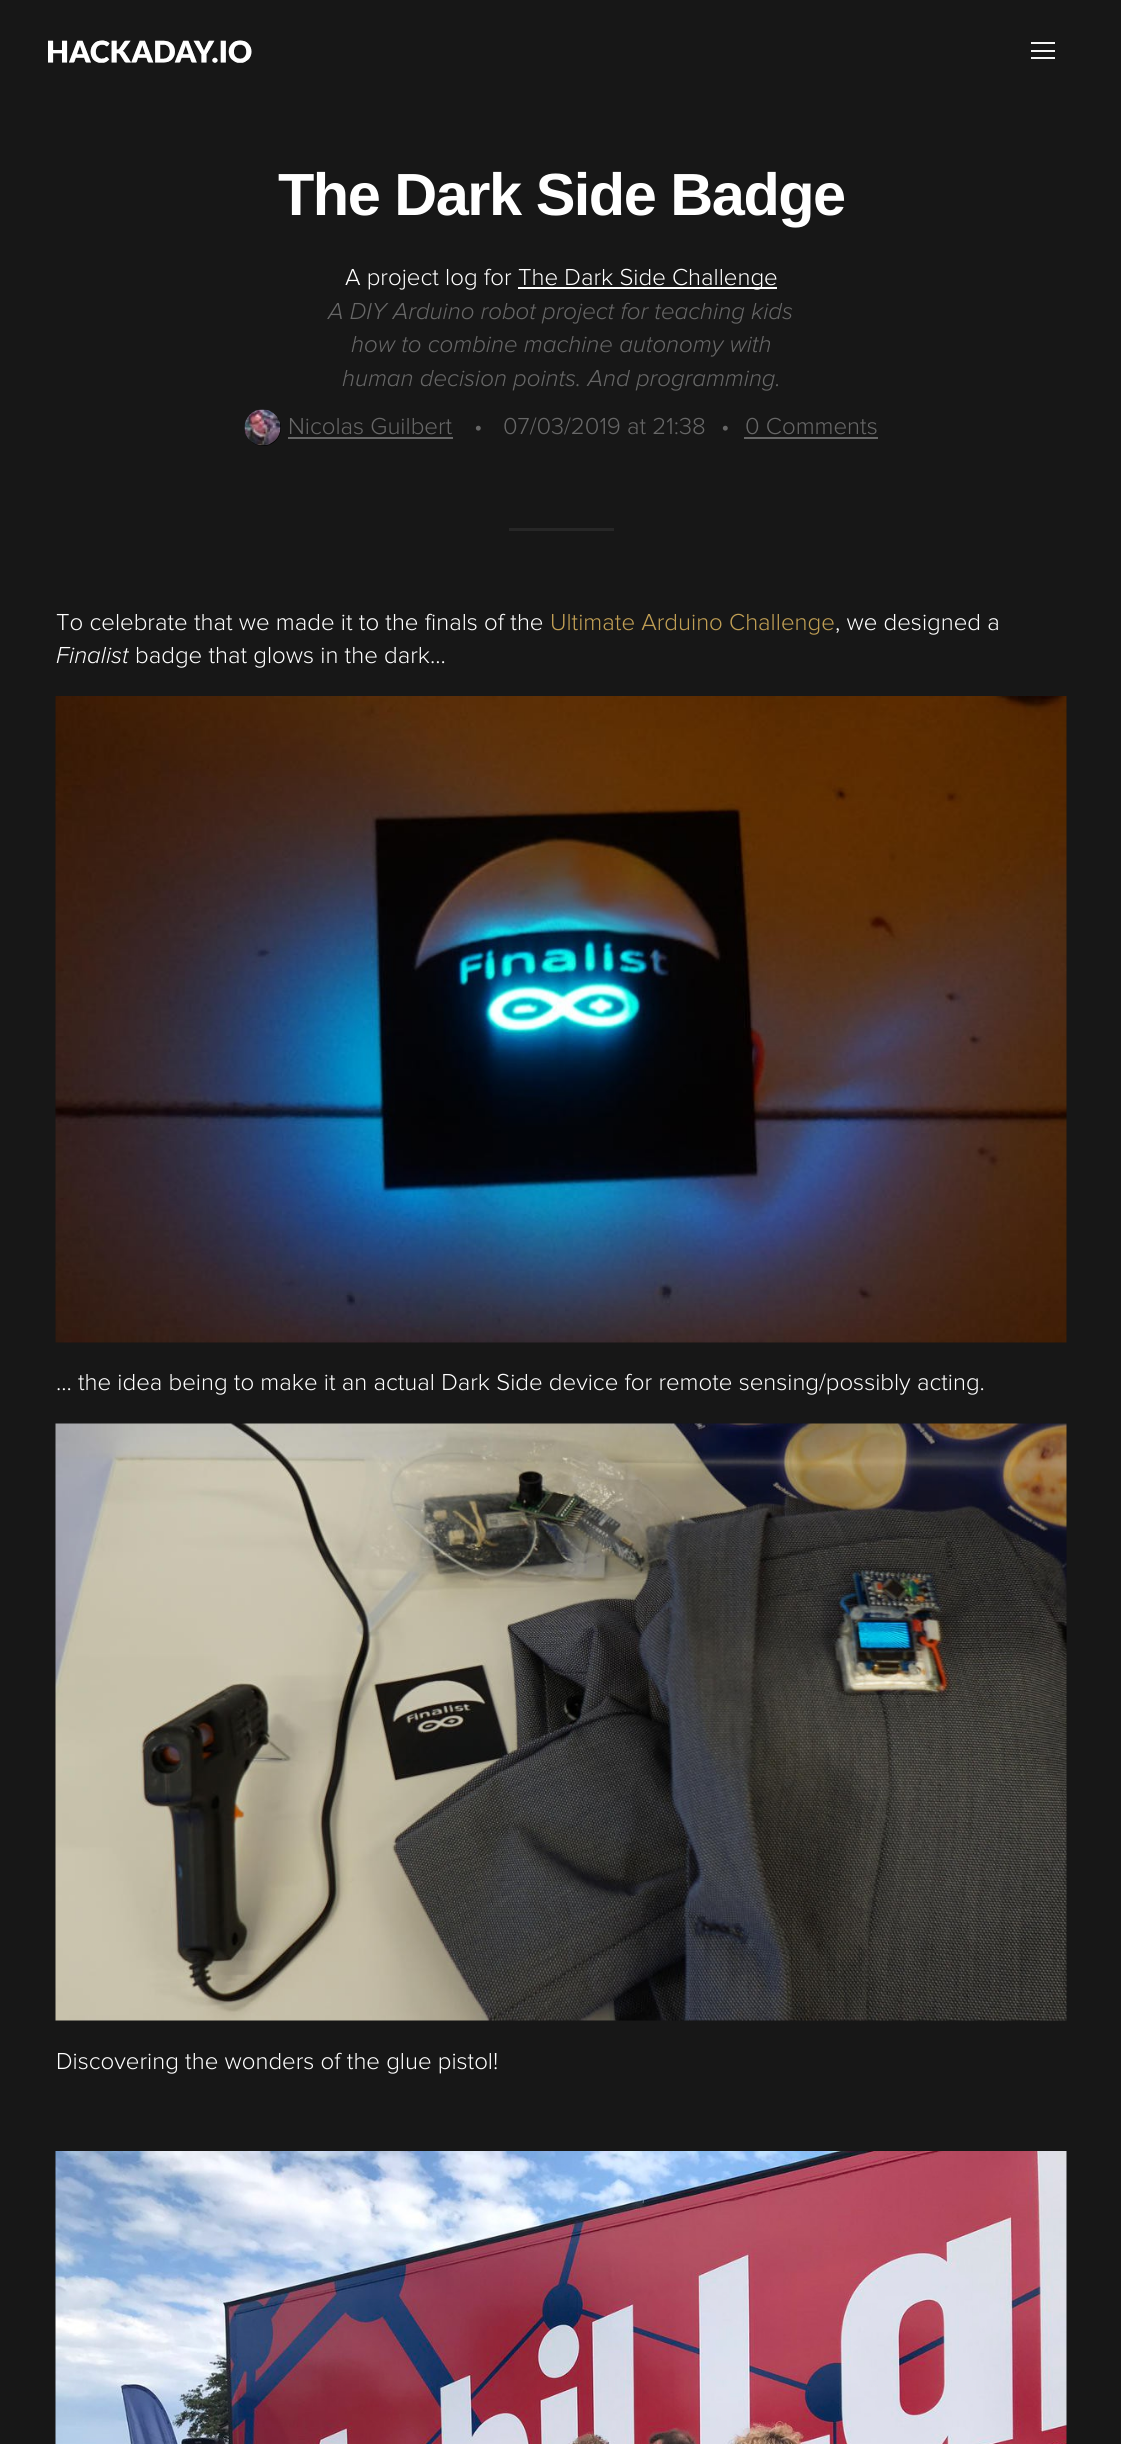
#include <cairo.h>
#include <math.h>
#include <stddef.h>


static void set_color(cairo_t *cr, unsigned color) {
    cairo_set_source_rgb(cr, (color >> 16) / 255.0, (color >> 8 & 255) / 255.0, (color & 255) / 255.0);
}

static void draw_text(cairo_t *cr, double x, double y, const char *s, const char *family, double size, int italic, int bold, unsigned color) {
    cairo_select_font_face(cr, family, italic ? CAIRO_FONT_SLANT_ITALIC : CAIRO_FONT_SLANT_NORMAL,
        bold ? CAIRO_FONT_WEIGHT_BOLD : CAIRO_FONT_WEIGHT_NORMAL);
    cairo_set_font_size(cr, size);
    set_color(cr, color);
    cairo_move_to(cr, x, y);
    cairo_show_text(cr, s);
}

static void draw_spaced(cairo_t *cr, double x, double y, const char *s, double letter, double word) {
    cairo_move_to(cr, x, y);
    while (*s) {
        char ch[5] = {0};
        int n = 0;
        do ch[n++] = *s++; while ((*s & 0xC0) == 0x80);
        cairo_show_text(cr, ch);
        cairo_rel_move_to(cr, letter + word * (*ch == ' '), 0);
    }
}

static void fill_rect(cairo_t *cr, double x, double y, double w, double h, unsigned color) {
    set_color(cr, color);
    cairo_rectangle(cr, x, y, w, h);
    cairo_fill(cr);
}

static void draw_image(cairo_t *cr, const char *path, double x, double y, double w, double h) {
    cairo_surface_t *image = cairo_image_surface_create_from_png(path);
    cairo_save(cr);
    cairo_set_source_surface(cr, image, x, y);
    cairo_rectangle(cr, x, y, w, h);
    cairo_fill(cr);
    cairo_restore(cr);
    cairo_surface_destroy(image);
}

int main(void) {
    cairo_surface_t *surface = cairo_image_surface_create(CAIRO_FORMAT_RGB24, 1121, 2444);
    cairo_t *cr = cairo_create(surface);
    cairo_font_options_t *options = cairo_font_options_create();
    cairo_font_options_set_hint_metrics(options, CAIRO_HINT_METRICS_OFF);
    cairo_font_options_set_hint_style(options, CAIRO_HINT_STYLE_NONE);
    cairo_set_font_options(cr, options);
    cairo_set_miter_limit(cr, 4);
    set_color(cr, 0x171717);
    cairo_paint(cr);
    draw_image(cr, "assets/img1.png", 48, 40, 204, 23);
    fill_rect(cr, 1031, 42, 24, 2, 0xF5F5F5);
    fill_rect(cr, 1031, 50, 24, 2, 0xF5F5F5);
    fill_rect(cr, 1031, 57, 24, 2, 0xF5F5F5);
    cairo_select_font_face(cr, "Liberation Sans", CAIRO_FONT_SLANT_NORMAL, CAIRO_FONT_WEIGHT_BOLD);
    cairo_set_font_size(cr, 59.5);
    set_color(cr, 0xFFFFFF);
    draw_spaced(cr, 278, 215, "The Dark Side Badge", -1.5, 0);
    draw_text(cr, 345, 285, "A project log for", "Proxima Nova Light", 24, 0, 0, 0xFFFFFF);
    fill_rect(cr, 518, 287, 259, 2, 0xFFFFFF);
    draw_text(cr, 518, 285, "The Dark Side Challenge", "Proxima Nova Light", 24, 0, 0, 0xFFFFFF);
    draw_text(cr, 328, 319, "A DIY Arduino robot project for teaching kids", "Proxima Nova Light", 24, 1, 0, 0x676767);
    draw_text(cr, 351, 352, "how to combine machine autonomy with", "Proxima Nova Light", 24, 1, 0, 0x676767);
    draw_text(cr, 342, 386, "human decision points. And programming.", "Proxima Nova Light", 24, 1, 0, 0x676767);
    set_color(cr, 0x000000);
    cairo_new_path(cr);
    cairo_arc(cr, 263, 428, 18, 0, 2 * M_PI);
    cairo_fill(cr);
    draw_image(cr, "assets/img2.png", 244, 409, 37, 37);
    draw_text(cr, 288, 434, "Nicolas Guilbert", "Proxima Nova Light", 24, 0, 0, 0x676767);
    fill_rect(cr, 288, 437, 165, 2, 0x676767);
    draw_text(cr, 474, 434, "•", "Proxima Nova Light", 24, 0, 0, 0x676767);
    draw_text(cr, 503, 434, "07/03/2019 at 21:38", "Proxima Nova Light", 24, 0, 0, 0x676767);
    draw_text(cr, 721, 434, "•", "Proxima Nova Light", 24, 0, 0, 0x676767);
    draw_text(cr, 745, 434, "0 Comments", "Proxima Nova Light", 24, 0, 0, 0x676767);
    fill_rect(cr, 744, 437, 134, 2, 0x676767);
    fill_rect(cr, 509, 528, 105, 3, 0x272727);
    draw_text(cr, 56, 630, "To celebrate that we made it to the finals of the", "Proxima Nova Light", 24, 0, 0, 0xFFFFFF);
    draw_text(cr, 550, 630, "Ultimate Arduino Challenge", "Proxima Nova Light", 24, 0, 0, 0xC19F54);
    draw_text(cr, 835, 630, ", we designed a", "Proxima Nova Light", 24, 0, 0, 0xFFFFFF);
    draw_text(cr, 56, 663, "Finalist", "Proxima Nova Light", 24, 1, 0, 0xFFFFFF);
    draw_text(cr, 135, 663, "badge that glows in the dark...", "Proxima Nova Light", 24, 0, 0, 0xFFFFFF);
    draw_image(cr, "assets/img3.png", 55, 696, 1012, 647);
    draw_text(cr, 56, 1390, "... the idea being to make it an actual Dark Side device for remote sensing/possibly acting.", "Proxima Nova Light", 24, 0, 0, 0xFFFFFF);
    draw_image(cr, "assets/img4.png", 55, 1423, 1012, 598);
    draw_text(cr, 56, 2069, "Discovering the wonders of the glue pistol!", "Proxima Nova Light", 24, 0, 0, 0xFFFFFF);
    draw_image(cr, "assets/img5.png", 55, 2151, 1012, 293);
    cairo_surface_write_to_png(surface, "output.png");
    cairo_font_options_destroy(options);
    cairo_destroy(cr);
    cairo_surface_destroy(surface);
    return 0;
}
